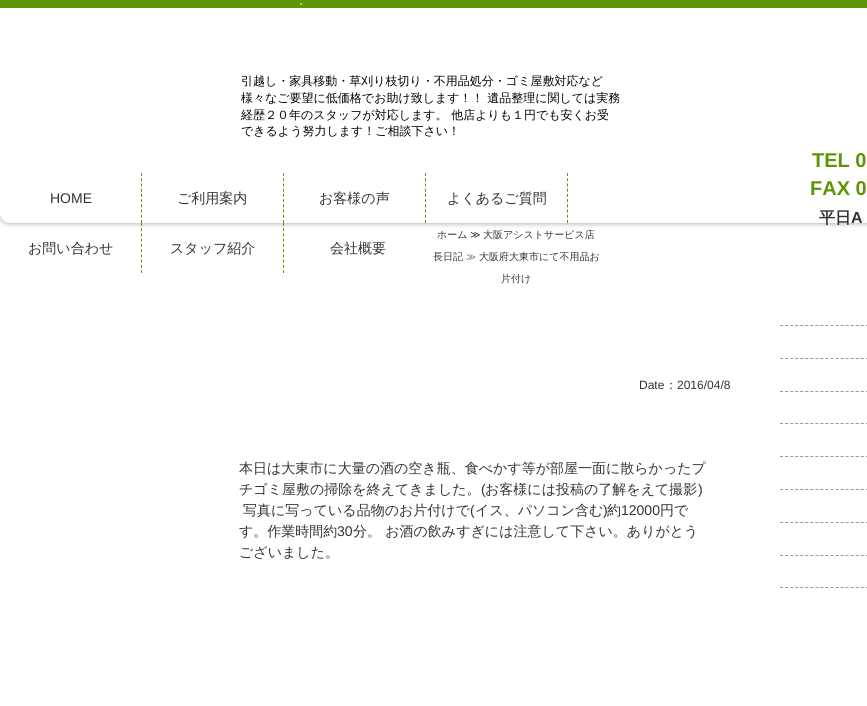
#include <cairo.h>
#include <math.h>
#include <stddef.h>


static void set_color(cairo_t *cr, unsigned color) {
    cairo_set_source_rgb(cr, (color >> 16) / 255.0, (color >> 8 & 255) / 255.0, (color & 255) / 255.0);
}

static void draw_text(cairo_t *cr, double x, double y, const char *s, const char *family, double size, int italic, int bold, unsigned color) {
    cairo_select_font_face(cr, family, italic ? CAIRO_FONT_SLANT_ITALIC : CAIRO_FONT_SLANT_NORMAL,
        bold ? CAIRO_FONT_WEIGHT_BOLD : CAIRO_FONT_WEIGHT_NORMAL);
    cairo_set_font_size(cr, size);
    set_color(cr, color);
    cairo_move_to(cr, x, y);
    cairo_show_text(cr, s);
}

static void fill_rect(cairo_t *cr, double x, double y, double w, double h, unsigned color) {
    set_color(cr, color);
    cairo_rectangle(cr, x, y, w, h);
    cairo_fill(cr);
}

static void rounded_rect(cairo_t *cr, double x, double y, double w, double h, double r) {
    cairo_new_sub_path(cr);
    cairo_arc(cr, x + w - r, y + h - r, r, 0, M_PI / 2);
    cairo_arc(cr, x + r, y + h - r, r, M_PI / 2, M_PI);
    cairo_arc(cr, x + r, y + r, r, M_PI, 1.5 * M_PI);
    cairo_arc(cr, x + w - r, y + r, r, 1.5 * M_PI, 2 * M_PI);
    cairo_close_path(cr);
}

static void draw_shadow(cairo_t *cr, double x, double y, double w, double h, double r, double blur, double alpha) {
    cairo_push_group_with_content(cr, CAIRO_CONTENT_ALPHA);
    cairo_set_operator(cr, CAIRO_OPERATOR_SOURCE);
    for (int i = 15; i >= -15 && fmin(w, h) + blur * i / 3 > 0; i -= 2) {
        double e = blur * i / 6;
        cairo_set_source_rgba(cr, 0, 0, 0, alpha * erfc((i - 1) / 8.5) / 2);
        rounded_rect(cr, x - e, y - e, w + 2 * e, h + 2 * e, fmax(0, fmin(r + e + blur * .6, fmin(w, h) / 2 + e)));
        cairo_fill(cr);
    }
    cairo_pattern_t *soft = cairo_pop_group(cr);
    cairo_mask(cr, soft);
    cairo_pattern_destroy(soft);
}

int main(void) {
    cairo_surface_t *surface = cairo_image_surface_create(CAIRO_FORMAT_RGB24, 867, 706);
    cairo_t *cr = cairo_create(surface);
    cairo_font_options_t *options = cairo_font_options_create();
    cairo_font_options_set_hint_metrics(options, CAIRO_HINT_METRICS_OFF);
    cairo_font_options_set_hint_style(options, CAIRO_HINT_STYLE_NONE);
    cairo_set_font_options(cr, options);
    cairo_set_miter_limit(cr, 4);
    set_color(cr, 0xFFFFFF);
    cairo_paint(cr);
    fill_rect(cr, 0, 0, 867, 8, 0x5D9603);
    cairo_save(cr);
    cairo_set_fill_rule(cr, CAIRO_FILL_RULE_EVEN_ODD);
    cairo_new_path(cr);
    cairo_move_to(cr, 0, 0);
    cairo_line_to(cr, 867, 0);
    cairo_line_to(cr, 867, 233);
    cairo_line_to(cr, 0, 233);
    cairo_close_path(cr);
    cairo_move_to(cr, 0, -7);
    cairo_line_to(cr, 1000, -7);
    cairo_line_to(cr, 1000, 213);
    cairo_curve_to(cr, 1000, 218.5, 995.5, 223, 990, 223);
    cairo_line_to(cr, 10, 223);
    cairo_curve_to(cr, 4.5, 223, 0, 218.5, 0, 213);
    cairo_close_path(cr);
    cairo_clip(cr);
    set_color(cr, 0x000000);
    draw_shadow(cr, -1, -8, 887, 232, 11, 2.5, 0.3);
    cairo_restore(cr);
    draw_text(cr, 299, 4, "。", "WenQuanYi Zen Hei Medium", 10, 0, 0, 0xFFFFFF);
    draw_text(cr, 241, 85, "引越し・家具移動・草刈り枝切り・不用品処分・ゴミ屋敷対応など", "WenQuanYi Zen Hei Medium", 12, 0, 0, 0x000000);
    draw_text(cr, 241, 102, "様々なご要望に低価格でお助け致します！！ 遺品整理に関しては実務", "WenQuanYi Zen Hei Medium", 12, 0, 0, 0x000000);
    draw_text(cr, 241, 119, "経歴２０年のスタッフが対応します。 他店よりも１円でも安くお受", "WenQuanYi Zen Hei Medium", 12, 0, 0, 0x000000);
    draw_text(cr, 241, 135, "できるよう努力します！ご相談下さい！", "WenQuanYi Zen Hei Medium", 12, 0, 0, 0x000000);
    draw_text(cr, 812, 167, "TEL 0", "Liberation Sans", 20, 0, 1, 0x5D9603);
    draw_text(cr, 810, 195, "FAX 0", "Liberation Sans", 20, 0, 1, 0x5D9603);
    draw_text(cr, 819, 223, "平日", "WenQuanYi Zen Hei", 16, 0, 1, 0x333333);
    draw_text(cr, 851, 223, "A", "Liberation Sans", 16, 0, 1, 0x333333);
    cairo_new_path(cr);
    cairo_move_to(cr, 141.5, 173);
    cairo_line_to(cr, 141.5, 223);
    set_color(cr, 0x5D9603);
    cairo_set_line_width(cr, 1);
    cairo_set_dash(cr, (double[]){3, 2.22}, 2, 0);
    cairo_stroke(cr);
    draw_text(cr, 50, 203, "HOME", "Liberation Sans", 14, 0, 0, 0x333333);
    cairo_new_path(cr);
    cairo_move_to(cr, 283.5, 173);
    cairo_line_to(cr, 283.5, 223);
    set_color(cr, 0x5D9603);
    cairo_stroke(cr);
    draw_text(cr, 177, 203, "ご利用案内", "WenQuanYi Zen Hei Medium", 14, 0, 0, 0x333333);
    cairo_new_path(cr);
    cairo_move_to(cr, 425.5, 173);
    cairo_line_to(cr, 425.5, 223);
    set_color(cr, 0x5D9603);
    cairo_stroke(cr);
    draw_text(cr, 319, 203, "お客様の声", "WenQuanYi Zen Hei Medium", 14, 0, 0, 0x333333);
    cairo_new_path(cr);
    cairo_move_to(cr, 567.5, 173);
    cairo_line_to(cr, 567.5, 223);
    set_color(cr, 0x5D9603);
    cairo_stroke(cr);
    draw_text(cr, 447, 203, "よくあるご質問", "WenQuanYi Zen Hei Medium", 14, 0, 0, 0x333333);
    cairo_new_path(cr);
    cairo_move_to(cr, 141.5, 223);
    cairo_line_to(cr, 141.5, 273);
    set_color(cr, 0x5D9603);
    cairo_stroke(cr);
    draw_text(cr, 28, 253, "お問い合わせ", "WenQuanYi Zen Hei Medium", 14, 0, 0, 0x333333);
    cairo_new_path(cr);
    cairo_move_to(cr, 283.5, 223);
    cairo_line_to(cr, 283.5, 273);
    set_color(cr, 0x5D9603);
    cairo_stroke(cr);
    draw_text(cr, 170, 253, "スタッフ紹介", "WenQuanYi Zen Hei Medium", 14, 0, 0, 0x333333);
    draw_text(cr, 330, 253, "会社概要", "WenQuanYi Zen Hei Medium", 14, 0, 0, 0x333333);
    draw_text(cr, 437, 238, "ホーム", "WenQuanYi Zen Hei Medium", 10, 0, 0, 0x333333);
    draw_text(cr, 470, 238, "≫", "DejaVu Sans", 10, 0, 0, 0x333333);
    draw_text(cr, 483, 238, "大阪アシストサービス店", "WenQuanYi Zen Hei Medium", 10, 0, 0, 0x333333);
    draw_text(cr, 433, 260, "長日記 ≫ 大阪府大東市にて不用品お", "WenQuanYi Zen Hei Medium", 10, 0, 0, 0x333333);
    draw_text(cr, 501, 282, "片付け", "WenQuanYi Zen Hei Medium", 10, 0, 0, 0x333333);
    draw_text(cr, 639, 389, "Date", "Liberation Sans", 12, 0, 0, 0x333333);
    draw_text(cr, 665, 389, "：", "WenQuanYi Zen Hei Medium", 12, 0, 0, 0x333333);
    draw_text(cr, 677, 389, "2016/04/8", "Liberation Sans", 12, 0, 0, 0x333333);
    draw_text(cr, 239, 473, "本日は大東市に大量の酒の空き瓶、食べかす等が部屋一面に散らかったプ", "WenQuanYi Zen Hei Medium", 14, 0, 0, 0x333333);
    draw_text(cr, 239, 494, "チゴミ屋敷の掃除を終えてきました。", "WenQuanYi Zen Hei Medium", 14, 0, 0, 0x333333);
    draw_text(cr, 481, 494, "(", "Liberation Sans", 14, 0, 0, 0x333333);
    draw_text(cr, 485, 494, "お客様には投稿の了解をえて撮影", "WenQuanYi Zen Hei Medium", 14, 0, 0, 0x333333);
    draw_text(cr, 698, 494, ")", "Liberation Sans", 14, 0, 0, 0x333333);
    draw_text(cr, 243, 515, "写真に写っている品物のお片付けで", "WenQuanYi Zen Hei Medium", 14, 0, 0, 0x333333);
    draw_text(cr, 470, 515, "(", "Liberation Sans", 14, 0, 0, 0x333333);
    draw_text(cr, 475, 515, "イス、パソコン含む", "WenQuanYi Zen Hei Medium", 14, 0, 0, 0x333333);
    draw_text(cr, 603, 515, ")", "Liberation Sans", 14, 0, 0, 0x333333);
    draw_text(cr, 607, 515, "約", "WenQuanYi Zen Hei Medium", 14, 0, 0, 0x333333);
    draw_text(cr, 621, 515, "12000", "Liberation Sans", 14, 0, 0, 0x333333);
    draw_text(cr, 660, 515, "円で", "WenQuanYi Zen Hei Medium", 14, 0, 0, 0x333333);
    draw_text(cr, 239, 536, "す。作業時間約", "WenQuanYi Zen Hei Medium", 14, 0, 0, 0x333333);
    draw_text(cr, 337, 536, "30", "Liberation Sans", 14, 0, 0, 0x333333);
    draw_text(cr, 353, 536, "分。 お酒の飲みすぎには注意して下さい。ありがとう", "WenQuanYi Zen Hei Medium", 14, 0, 0, 0x333333);
    draw_text(cr, 239, 557, "ございました。", "WenQuanYi Zen Hei Medium", 14, 0, 0, 0x333333);
    cairo_new_path(cr);
    cairo_move_to(cr, 780, 325.5);
    cairo_line_to(cr, 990, 325.5);
    set_color(cr, 0x999999);
    cairo_set_dash(cr, (double[]){3, 2.05}, 2, 0);
    cairo_stroke(cr);
    cairo_new_path(cr);
    cairo_move_to(cr, 780, 358.5);
    cairo_line_to(cr, 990, 358.5);
    cairo_stroke(cr);
    cairo_new_path(cr);
    cairo_move_to(cr, 780, 391.5);
    cairo_line_to(cr, 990, 391.5);
    cairo_stroke(cr);
    cairo_new_path(cr);
    cairo_move_to(cr, 780, 423.5);
    cairo_line_to(cr, 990, 423.5);
    cairo_stroke(cr);
    cairo_new_path(cr);
    cairo_move_to(cr, 780, 456.5);
    cairo_line_to(cr, 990, 456.5);
    cairo_stroke(cr);
    cairo_new_path(cr);
    cairo_move_to(cr, 780, 489.5);
    cairo_line_to(cr, 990, 489.5);
    cairo_stroke(cr);
    cairo_new_path(cr);
    cairo_move_to(cr, 780, 522.5);
    cairo_line_to(cr, 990, 522.5);
    cairo_stroke(cr);
    cairo_new_path(cr);
    cairo_move_to(cr, 780, 555.5);
    cairo_line_to(cr, 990, 555.5);
    cairo_stroke(cr);
    cairo_new_path(cr);
    cairo_move_to(cr, 780, 587.5);
    cairo_line_to(cr, 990, 587.5);
    cairo_stroke(cr);
    cairo_surface_write_to_png(surface, "output.png");
    cairo_font_options_destroy(options);
    cairo_destroy(cr);
    cairo_surface_destroy(surface);
    return 0;
}
